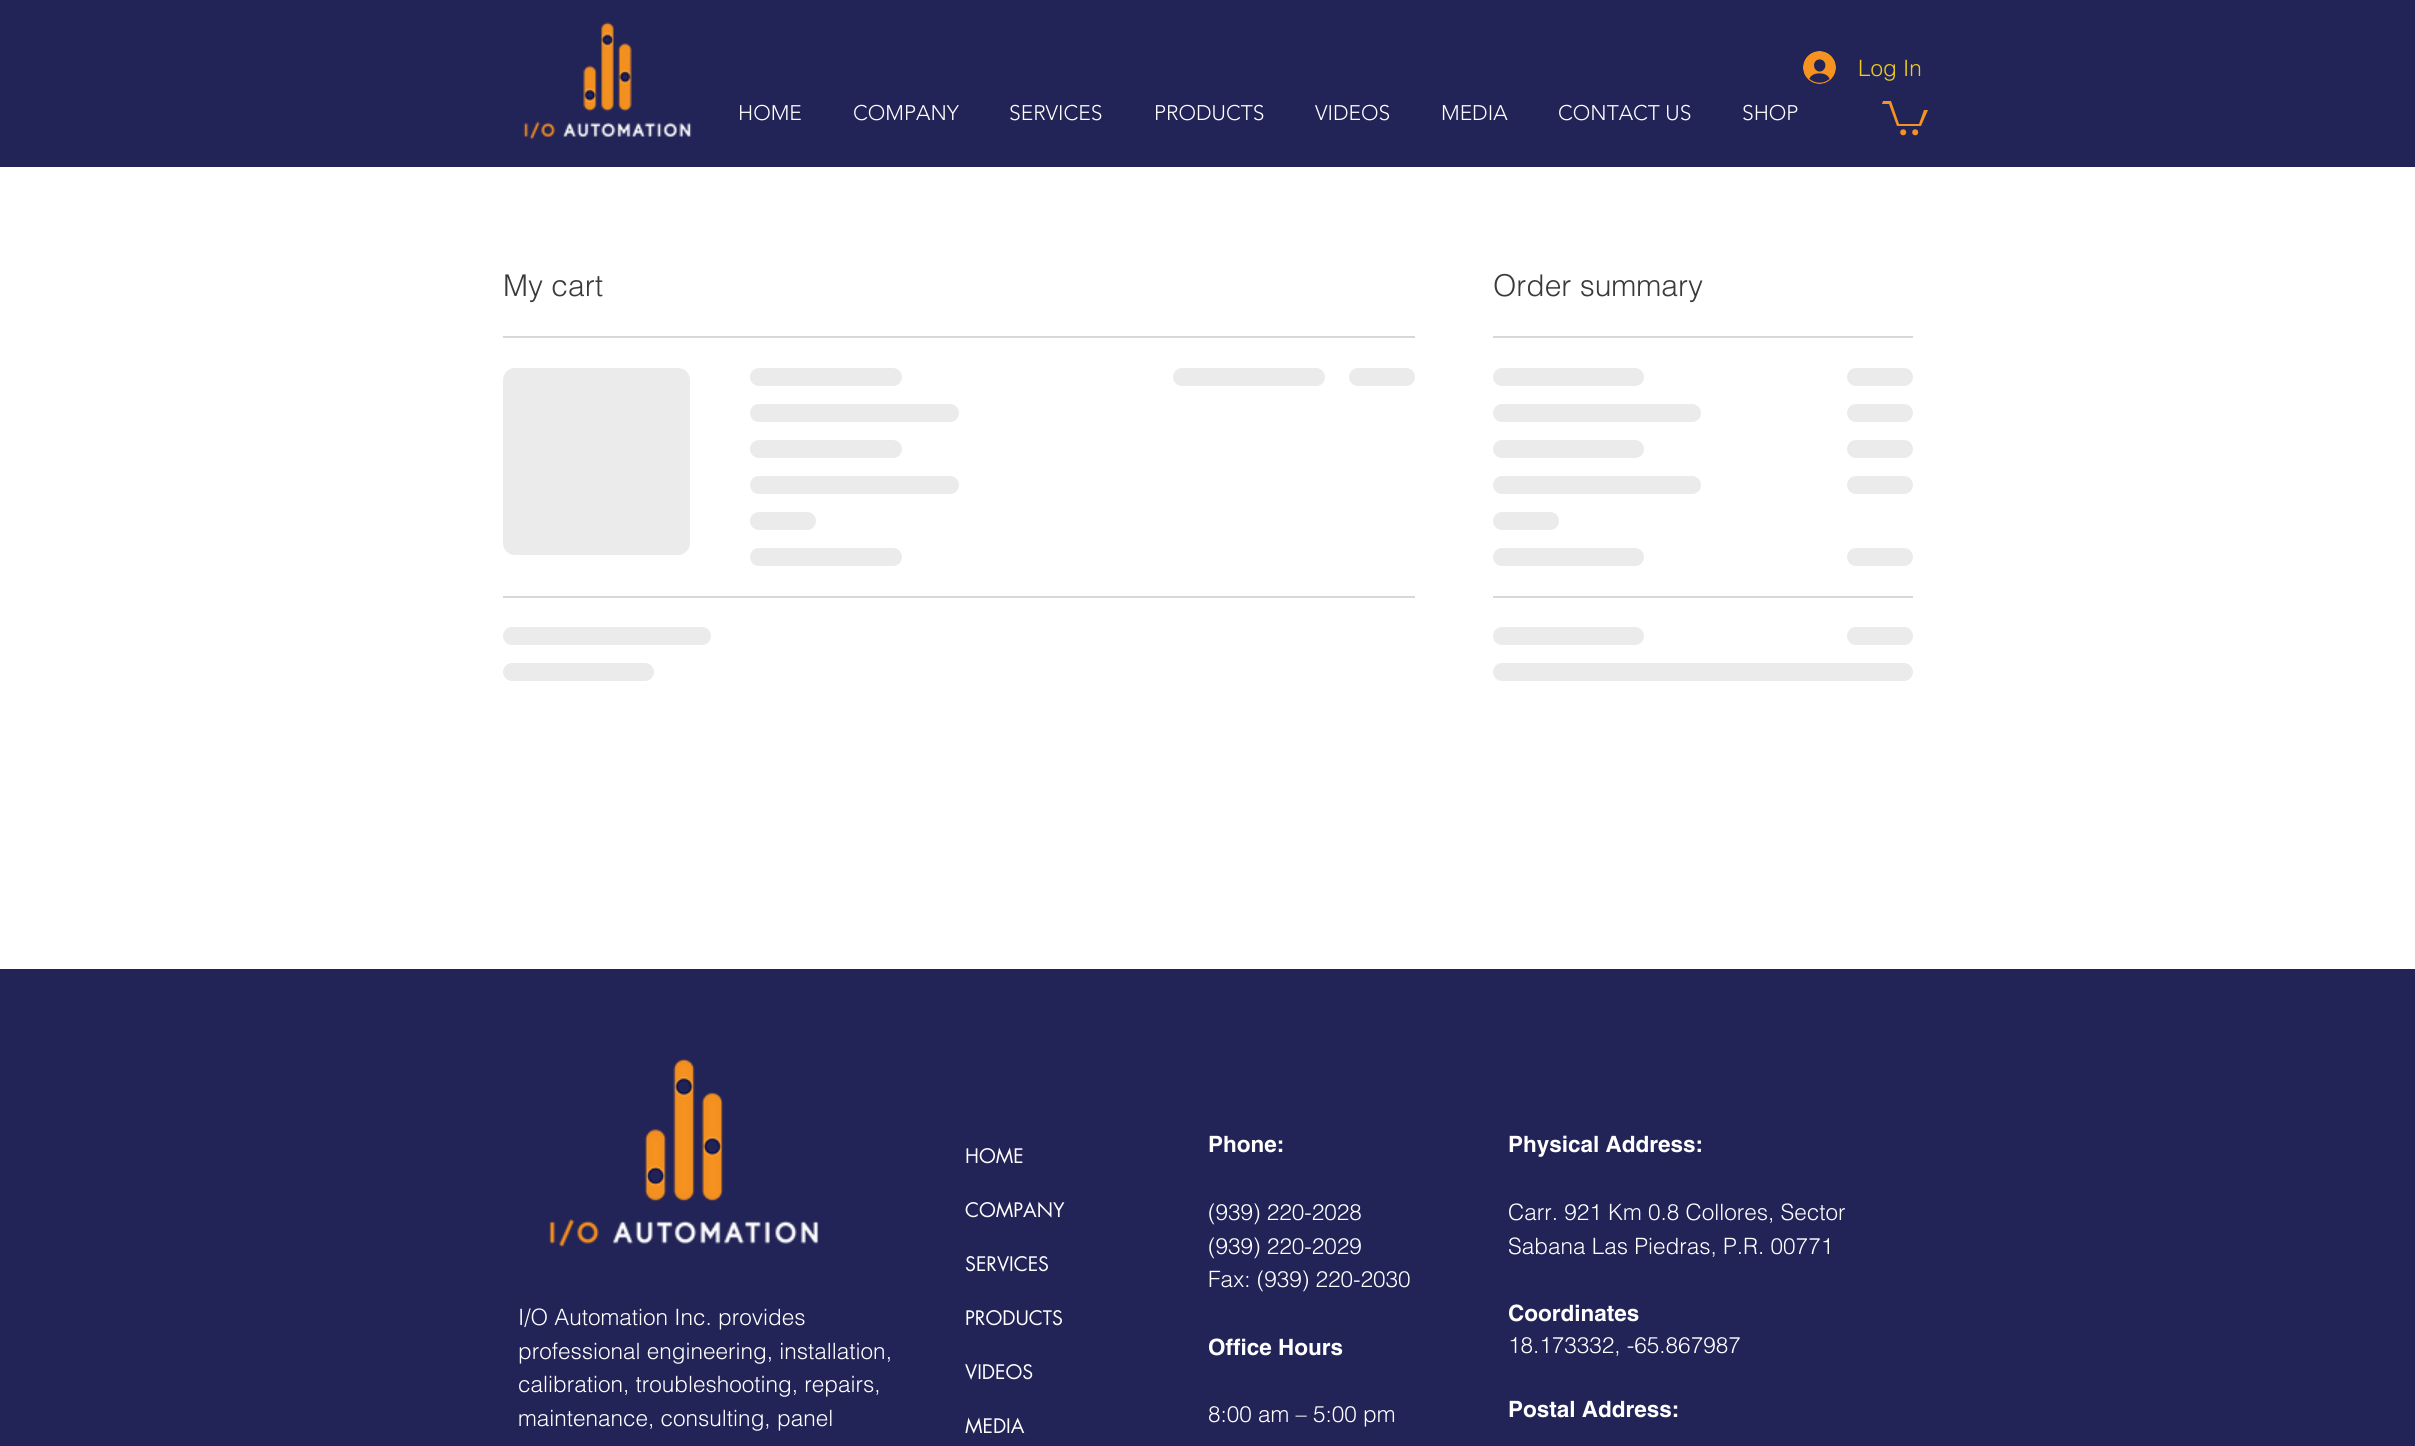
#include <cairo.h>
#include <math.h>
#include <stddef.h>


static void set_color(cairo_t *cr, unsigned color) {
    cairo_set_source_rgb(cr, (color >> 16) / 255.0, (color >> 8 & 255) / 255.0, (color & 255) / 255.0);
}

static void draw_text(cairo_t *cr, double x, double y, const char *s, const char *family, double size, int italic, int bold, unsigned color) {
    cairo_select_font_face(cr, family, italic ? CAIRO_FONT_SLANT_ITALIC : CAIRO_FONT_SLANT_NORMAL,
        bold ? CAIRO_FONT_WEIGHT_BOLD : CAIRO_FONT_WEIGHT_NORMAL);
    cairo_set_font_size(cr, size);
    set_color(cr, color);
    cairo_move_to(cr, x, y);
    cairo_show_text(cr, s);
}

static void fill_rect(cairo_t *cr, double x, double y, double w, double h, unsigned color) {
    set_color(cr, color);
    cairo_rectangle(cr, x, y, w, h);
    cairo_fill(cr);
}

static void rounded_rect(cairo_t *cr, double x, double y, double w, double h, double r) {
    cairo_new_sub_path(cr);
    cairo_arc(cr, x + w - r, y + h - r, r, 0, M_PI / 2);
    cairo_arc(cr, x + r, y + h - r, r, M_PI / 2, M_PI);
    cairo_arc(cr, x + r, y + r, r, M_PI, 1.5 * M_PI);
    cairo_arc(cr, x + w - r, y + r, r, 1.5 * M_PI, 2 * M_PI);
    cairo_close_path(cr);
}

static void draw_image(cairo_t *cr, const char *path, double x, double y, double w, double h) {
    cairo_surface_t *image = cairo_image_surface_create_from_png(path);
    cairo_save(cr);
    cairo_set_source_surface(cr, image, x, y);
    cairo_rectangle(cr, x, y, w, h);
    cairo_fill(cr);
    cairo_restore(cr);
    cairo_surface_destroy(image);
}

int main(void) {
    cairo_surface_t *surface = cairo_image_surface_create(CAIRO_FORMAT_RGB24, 2415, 1446);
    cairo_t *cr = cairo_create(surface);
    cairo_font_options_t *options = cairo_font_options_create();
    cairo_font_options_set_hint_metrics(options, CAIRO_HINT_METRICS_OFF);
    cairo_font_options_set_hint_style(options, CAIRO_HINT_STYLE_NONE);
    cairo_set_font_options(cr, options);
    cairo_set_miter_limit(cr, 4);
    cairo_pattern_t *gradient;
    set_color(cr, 0xFFFFFF);
    cairo_paint(cr);
    fill_rect(cr, 0, 0, 2415, 167, 0x222357);
    draw_image(cr, "assets/img1.png", 523, 22, 169, 118);
    draw_image(cr, "assets/img2.png", 1803, 51, 33, 33);
    draw_text(cr, 1858, 76, "Log In", "helvetica Light", 22.5, 0, 0, 0xEDCD1F);
    draw_text(cr, 738, 120, "HOME", "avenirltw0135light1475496 Light", 21, 0, 0, 0xFFFFFF);
    draw_text(cr, 853, 120, "COMPANY", "avenirltw0135light1475496 Light", 21, 0, 0, 0xFFFFFF);
    draw_text(cr, 1009, 120, "SERVICES", "avenirltw0135light1475496 Light", 21, 0, 0, 0xFFFFFF);
    draw_text(cr, 1154, 120, "PRODUCTS", "avenirltw0135light1475496 Light", 21, 0, 0, 0xFFFFFF);
    draw_text(cr, 1315, 120, "VIDEOS", "avenirltw0135light1475496 Light", 21, 0, 0, 0xFFFFFF);
    draw_text(cr, 1441, 120, "MEDIA", "avenirltw0135light1475496 Light", 21, 0, 0, 0xFFFFFF);
    draw_text(cr, 1558, 120, "CONTACT US", "avenirltw0135light1475496 Light", 21, 0, 0, 0xFFFFFF);
    draw_text(cr, 1742, 120, "SHOP", "avenirltw0135light1475496 Light", 21, 0, 0, 0xFFFFFF);
    set_color(cr, 0xF69220);
    cairo_new_path(cr);
    cairo_move_to(cr, 1928, 110);
    cairo_line_to(cr, 1921, 126);
    cairo_line_to(cr, 1897, 126);
    cairo_line_to(cr, 1889, 104);
    cairo_line_to(cr, 1882, 104);
    cairo_line_to(cr, 1883, 101);
    cairo_line_to(cr, 1891, 101);
    cairo_line_to(cr, 1899, 124);
    cairo_line_to(cr, 1919, 124);
    cairo_line_to(cr, 1924, 110);
    cairo_fill(cr);
    cairo_arc(cr, 1915.2, 132.3, 3, 0, 2 * M_PI);
    cairo_fill(cr);
    cairo_arc(cr, 1903.2, 132.3, 3, 0, 2 * M_PI);
    cairo_fill(cr);
    fill_rect(cr, 503, 336, 912, 2, 0xD8D8D8);
    draw_text(cr, 503, 296, "My cart", "helvetica Light", 30, 0, 0, 0x3B3A3A);
    gradient = cairo_pattern_create_linear(503, 461, 1253, 461);
    cairo_pattern_add_color_stop_rgba(gradient, 0.25, 0.922, 0.922, 0.922, 1);
    cairo_pattern_add_color_stop_rgba(gradient, 0.37, 0.847, 0.847, 0.847, 1);
    cairo_pattern_add_color_stop_rgba(gradient, 0.63, 0.922, 0.922, 0.922, 1);
    cairo_set_source(cr, gradient);
    cairo_pattern_destroy(gradient);
    rounded_rect(cr, 503, 368, 187, 187, 12);
    cairo_fill(cr);
    gradient = cairo_pattern_create_linear(750, 377, 1356, 377);
    cairo_pattern_add_color_stop_rgba(gradient, 0.25, 0.922, 0.922, 0.922, 1);
    cairo_pattern_add_color_stop_rgba(gradient, 0.37, 0.847, 0.847, 0.847, 1);
    cairo_pattern_add_color_stop_rgba(gradient, 0.63, 0.922, 0.922, 0.922, 1);
    cairo_set_source(cr, gradient);
    cairo_pattern_destroy(gradient);
    rounded_rect(cr, 750, 368, 152, 18, 9);
    cairo_fill(cr);
    gradient = cairo_pattern_create_linear(750, 413, 1584, 413);
    cairo_pattern_add_color_stop_rgba(gradient, 0.25, 0.922, 0.922, 0.922, 1);
    cairo_pattern_add_color_stop_rgba(gradient, 0.37, 0.847, 0.847, 0.847, 1);
    cairo_pattern_add_color_stop_rgba(gradient, 0.63, 0.922, 0.922, 0.922, 1);
    cairo_set_source(cr, gradient);
    cairo_pattern_destroy(gradient);
    rounded_rect(cr, 750, 404, 209, 18, 9);
    cairo_fill(cr);
    gradient = cairo_pattern_create_linear(750, 449, 1356, 449);
    cairo_pattern_add_color_stop_rgba(gradient, 0.25, 0.922, 0.922, 0.922, 1);
    cairo_pattern_add_color_stop_rgba(gradient, 0.37, 0.847, 0.847, 0.847, 1);
    cairo_pattern_add_color_stop_rgba(gradient, 0.63, 0.922, 0.922, 0.922, 1);
    cairo_set_source(cr, gradient);
    cairo_pattern_destroy(gradient);
    rounded_rect(cr, 750, 440, 152, 18, 9);
    cairo_fill(cr);
    gradient = cairo_pattern_create_linear(750, 485, 1584, 485);
    cairo_pattern_add_color_stop_rgba(gradient, 0.25, 0.922, 0.922, 0.922, 1);
    cairo_pattern_add_color_stop_rgba(gradient, 0.37, 0.847, 0.847, 0.847, 1);
    cairo_pattern_add_color_stop_rgba(gradient, 0.63, 0.922, 0.922, 0.922, 1);
    cairo_set_source(cr, gradient);
    cairo_pattern_destroy(gradient);
    rounded_rect(cr, 750, 476, 209, 18, 9);
    cairo_fill(cr);
    gradient = cairo_pattern_create_linear(750, 521, 1014, 521);
    cairo_pattern_add_color_stop_rgba(gradient, 0.25, 0.922, 0.922, 0.922, 1);
    cairo_pattern_add_color_stop_rgba(gradient, 0.37, 0.847, 0.847, 0.847, 1);
    cairo_pattern_add_color_stop_rgba(gradient, 0.63, 0.922, 0.922, 0.922, 1);
    cairo_set_source(cr, gradient);
    cairo_pattern_destroy(gradient);
    rounded_rect(cr, 750, 512, 66, 18, 9);
    cairo_fill(cr);
    gradient = cairo_pattern_create_linear(750, 557, 1356, 557);
    cairo_pattern_add_color_stop_rgba(gradient, 0.25, 0.922, 0.922, 0.922, 1);
    cairo_pattern_add_color_stop_rgba(gradient, 0.37, 0.847, 0.847, 0.847, 1);
    cairo_pattern_add_color_stop_rgba(gradient, 0.63, 0.922, 0.922, 0.922, 1);
    cairo_set_source(cr, gradient);
    cairo_pattern_destroy(gradient);
    rounded_rect(cr, 750, 548, 152, 18, 9);
    cairo_fill(cr);
    gradient = cairo_pattern_create_linear(1173, 377, 1779, 377);
    cairo_pattern_add_color_stop_rgba(gradient, 0.25, 0.922, 0.922, 0.922, 1);
    cairo_pattern_add_color_stop_rgba(gradient, 0.37, 0.847, 0.847, 0.847, 1);
    cairo_pattern_add_color_stop_rgba(gradient, 0.63, 0.922, 0.922, 0.922, 1);
    cairo_set_source(cr, gradient);
    cairo_pattern_destroy(gradient);
    rounded_rect(cr, 1173, 368, 152, 18, 9);
    cairo_fill(cr);
    gradient = cairo_pattern_create_linear(1349, 377, 1613, 377);
    cairo_pattern_add_color_stop_rgba(gradient, 0.25, 0.922, 0.922, 0.922, 1);
    cairo_pattern_add_color_stop_rgba(gradient, 0.37, 0.847, 0.847, 0.847, 1);
    cairo_pattern_add_color_stop_rgba(gradient, 0.63, 0.922, 0.922, 0.922, 1);
    cairo_set_source(cr, gradient);
    cairo_pattern_destroy(gradient);
    rounded_rect(cr, 1349, 368, 66, 18, 9);
    cairo_fill(cr);
    fill_rect(cr, 503, 596, 912, 2, 0xD8D8D8);
    gradient = cairo_pattern_create_linear(503, 636, 1337, 636);
    cairo_pattern_add_color_stop_rgba(gradient, 0.25, 0.922, 0.922, 0.922, 1);
    cairo_pattern_add_color_stop_rgba(gradient, 0.37, 0.847, 0.847, 0.847, 1);
    cairo_pattern_add_color_stop_rgba(gradient, 0.63, 0.922, 0.922, 0.922, 1);
    cairo_set_source(cr, gradient);
    cairo_pattern_destroy(gradient);
    rounded_rect(cr, 503, 627, 208, 18, 9);
    cairo_fill(cr);
    gradient = cairo_pattern_create_linear(503, 672, 1109, 672);
    cairo_pattern_add_color_stop_rgba(gradient, 0.25, 0.922, 0.922, 0.922, 1);
    cairo_pattern_add_color_stop_rgba(gradient, 0.37, 0.847, 0.847, 0.847, 1);
    cairo_pattern_add_color_stop_rgba(gradient, 0.63, 0.922, 0.922, 0.922, 1);
    cairo_set_source(cr, gradient);
    cairo_pattern_destroy(gradient);
    rounded_rect(cr, 503, 663, 151, 18, 9);
    cairo_fill(cr);
    fill_rect(cr, 1493, 336, 420, 2, 0xD8D8D8);
    draw_text(cr, 1493, 296, "Order summary", "helvetica Light", 30, 0, 0, 0x3B3A3A);
    gradient = cairo_pattern_create_linear(1493, 377, 2099, 377);
    cairo_pattern_add_color_stop_rgba(gradient, 0.25, 0.922, 0.922, 0.922, 1);
    cairo_pattern_add_color_stop_rgba(gradient, 0.37, 0.847, 0.847, 0.847, 1);
    cairo_pattern_add_color_stop_rgba(gradient, 0.63, 0.922, 0.922, 0.922, 1);
    cairo_set_source(cr, gradient);
    cairo_pattern_destroy(gradient);
    rounded_rect(cr, 1493, 368, 151, 18, 9);
    cairo_fill(cr);
    gradient = cairo_pattern_create_linear(1847, 377, 2111, 377);
    cairo_pattern_add_color_stop_rgba(gradient, 0.25, 0.922, 0.922, 0.922, 1);
    cairo_pattern_add_color_stop_rgba(gradient, 0.37, 0.847, 0.847, 0.847, 1);
    cairo_pattern_add_color_stop_rgba(gradient, 0.63, 0.922, 0.922, 0.922, 1);
    cairo_set_source(cr, gradient);
    cairo_pattern_destroy(gradient);
    rounded_rect(cr, 1847, 368, 66, 18, 9);
    cairo_fill(cr);
    gradient = cairo_pattern_create_linear(1493, 413, 2327, 413);
    cairo_pattern_add_color_stop_rgba(gradient, 0.25, 0.922, 0.922, 0.922, 1);
    cairo_pattern_add_color_stop_rgba(gradient, 0.37, 0.847, 0.847, 0.847, 1);
    cairo_pattern_add_color_stop_rgba(gradient, 0.63, 0.922, 0.922, 0.922, 1);
    cairo_set_source(cr, gradient);
    cairo_pattern_destroy(gradient);
    rounded_rect(cr, 1493, 404, 208, 18, 9);
    cairo_fill(cr);
    gradient = cairo_pattern_create_linear(1847, 413, 2111, 413);
    cairo_pattern_add_color_stop_rgba(gradient, 0.25, 0.922, 0.922, 0.922, 1);
    cairo_pattern_add_color_stop_rgba(gradient, 0.37, 0.847, 0.847, 0.847, 1);
    cairo_pattern_add_color_stop_rgba(gradient, 0.63, 0.922, 0.922, 0.922, 1);
    cairo_set_source(cr, gradient);
    cairo_pattern_destroy(gradient);
    rounded_rect(cr, 1847, 404, 66, 18, 9);
    cairo_fill(cr);
    gradient = cairo_pattern_create_linear(1493, 449, 2099, 449);
    cairo_pattern_add_color_stop_rgba(gradient, 0.25, 0.922, 0.922, 0.922, 1);
    cairo_pattern_add_color_stop_rgba(gradient, 0.37, 0.847, 0.847, 0.847, 1);
    cairo_pattern_add_color_stop_rgba(gradient, 0.63, 0.922, 0.922, 0.922, 1);
    cairo_set_source(cr, gradient);
    cairo_pattern_destroy(gradient);
    rounded_rect(cr, 1493, 440, 151, 18, 9);
    cairo_fill(cr);
    gradient = cairo_pattern_create_linear(1847, 449, 2111, 449);
    cairo_pattern_add_color_stop_rgba(gradient, 0.25, 0.922, 0.922, 0.922, 1);
    cairo_pattern_add_color_stop_rgba(gradient, 0.37, 0.847, 0.847, 0.847, 1);
    cairo_pattern_add_color_stop_rgba(gradient, 0.63, 0.922, 0.922, 0.922, 1);
    cairo_set_source(cr, gradient);
    cairo_pattern_destroy(gradient);
    rounded_rect(cr, 1847, 440, 66, 18, 9);
    cairo_fill(cr);
    gradient = cairo_pattern_create_linear(1493, 485, 2327, 485);
    cairo_pattern_add_color_stop_rgba(gradient, 0.25, 0.922, 0.922, 0.922, 1);
    cairo_pattern_add_color_stop_rgba(gradient, 0.37, 0.847, 0.847, 0.847, 1);
    cairo_pattern_add_color_stop_rgba(gradient, 0.63, 0.922, 0.922, 0.922, 1);
    cairo_set_source(cr, gradient);
    cairo_pattern_destroy(gradient);
    rounded_rect(cr, 1493, 476, 208, 18, 9);
    cairo_fill(cr);
    gradient = cairo_pattern_create_linear(1847, 485, 2111, 485);
    cairo_pattern_add_color_stop_rgba(gradient, 0.25, 0.922, 0.922, 0.922, 1);
    cairo_pattern_add_color_stop_rgba(gradient, 0.37, 0.847, 0.847, 0.847, 1);
    cairo_pattern_add_color_stop_rgba(gradient, 0.63, 0.922, 0.922, 0.922, 1);
    cairo_set_source(cr, gradient);
    cairo_pattern_destroy(gradient);
    rounded_rect(cr, 1847, 476, 66, 18, 9);
    cairo_fill(cr);
    gradient = cairo_pattern_create_linear(1493, 521, 1757, 521);
    cairo_pattern_add_color_stop_rgba(gradient, 0.25, 0.922, 0.922, 0.922, 1);
    cairo_pattern_add_color_stop_rgba(gradient, 0.37, 0.847, 0.847, 0.847, 1);
    cairo_pattern_add_color_stop_rgba(gradient, 0.63, 0.922, 0.922, 0.922, 1);
    cairo_set_source(cr, gradient);
    cairo_pattern_destroy(gradient);
    rounded_rect(cr, 1493, 512, 66, 18, 9);
    cairo_fill(cr);
    gradient = cairo_pattern_create_linear(1493, 557, 2099, 557);
    cairo_pattern_add_color_stop_rgba(gradient, 0.25, 0.922, 0.922, 0.922, 1);
    cairo_pattern_add_color_stop_rgba(gradient, 0.37, 0.847, 0.847, 0.847, 1);
    cairo_pattern_add_color_stop_rgba(gradient, 0.63, 0.922, 0.922, 0.922, 1);
    cairo_set_source(cr, gradient);
    cairo_pattern_destroy(gradient);
    rounded_rect(cr, 1493, 548, 151, 18, 9);
    cairo_fill(cr);
    gradient = cairo_pattern_create_linear(1847, 557, 2111, 557);
    cairo_pattern_add_color_stop_rgba(gradient, 0.25, 0.922, 0.922, 0.922, 1);
    cairo_pattern_add_color_stop_rgba(gradient, 0.37, 0.847, 0.847, 0.847, 1);
    cairo_pattern_add_color_stop_rgba(gradient, 0.63, 0.922, 0.922, 0.922, 1);
    cairo_set_source(cr, gradient);
    cairo_pattern_destroy(gradient);
    rounded_rect(cr, 1847, 548, 66, 18, 9);
    cairo_fill(cr);
    fill_rect(cr, 1493, 596, 420, 2, 0xD8D8D8);
    gradient = cairo_pattern_create_linear(1493, 636, 2099, 636);
    cairo_pattern_add_color_stop_rgba(gradient, 0.25, 0.922, 0.922, 0.922, 1);
    cairo_pattern_add_color_stop_rgba(gradient, 0.37, 0.847, 0.847, 0.847, 1);
    cairo_pattern_add_color_stop_rgba(gradient, 0.63, 0.922, 0.922, 0.922, 1);
    cairo_set_source(cr, gradient);
    cairo_pattern_destroy(gradient);
    rounded_rect(cr, 1493, 627, 151, 18, 9);
    cairo_fill(cr);
    gradient = cairo_pattern_create_linear(1847, 636, 2111, 636);
    cairo_pattern_add_color_stop_rgba(gradient, 0.25, 0.922, 0.922, 0.922, 1);
    cairo_pattern_add_color_stop_rgba(gradient, 0.37, 0.847, 0.847, 0.847, 1);
    cairo_pattern_add_color_stop_rgba(gradient, 0.63, 0.922, 0.922, 0.922, 1);
    cairo_set_source(cr, gradient);
    cairo_pattern_destroy(gradient);
    rounded_rect(cr, 1847, 627, 66, 18, 9);
    cairo_fill(cr);
    gradient = cairo_pattern_create_linear(1493, 672, 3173, 672);
    cairo_pattern_add_color_stop_rgba(gradient, 0.25, 0.922, 0.922, 0.922, 1);
    cairo_pattern_add_color_stop_rgba(gradient, 0.37, 0.847, 0.847, 0.847, 1);
    cairo_pattern_add_color_stop_rgba(gradient, 0.63, 0.922, 0.922, 0.922, 1);
    cairo_set_source(cr, gradient);
    cairo_pattern_destroy(gradient);
    rounded_rect(cr, 1493, 663, 420, 18, 9);
    cairo_fill(cr);
    fill_rect(cr, 0, 969, 2415, 477, 0x222357);
    draw_image(cr, "assets/img3.png", 549, 1058, 270, 189);
    draw_text(cr, 965, 1163, "HOME", "futura", 19.5, 0, 0, 0xFFFFFF);
    draw_text(cr, 965, 1217, "COMPANY", "futura", 19.5, 0, 0, 0xFFFFFF);
    draw_text(cr, 965, 1271, "SERVICES", "futura", 19.5, 0, 0, 0xFFFFFF);
    draw_text(cr, 965, 1325, "PRODUCTS", "futura", 19.5, 0, 0, 0xFFFFFF);
    draw_text(cr, 965, 1379, "VIDEOS", "futura", 19.5, 0, 0, 0xFFFFFF);
    draw_text(cr, 965, 1433, "MEDIA", "futura", 19.5, 0, 0, 0xFFFFFF);
    draw_text(cr, 1208, 1152, "Phone:", "helvetica", 22.5, 0, 1, 0xFFFFFF);
    draw_text(cr, 1208, 1220, "(939) 220-2028", "helvetica Light", 22.5, 0, 0, 0xFFFFFF);
    draw_text(cr, 1208, 1254, "(939) 220-2029", "helvetica Light", 22.5, 0, 0, 0xFFFFFF);
    draw_text(cr, 1208, 1287, "Fax: (939) 220-2030", "helvetica Light", 22.5, 0, 0, 0xFFFFFF);
    draw_text(cr, 1208, 1355, "Office Hours", "helvetica", 22.5, 0, 1, 0xFFFFFF);
    draw_text(cr, 1208, 1422, "8:00 am – 5:00 pm", "helvetica Light", 22.5, 0, 0, 0xFFFFFF);
    draw_text(cr, 1508, 1152, "Physical Address:", "helvetica", 22.5, 0, 1, 0xFFFFFF);
    draw_text(cr, 1508, 1220, "Carr. 921 Km 0.8 Collores, Sector", "helvetica Light", 22.5, 0, 0, 0xFFFFFF);
    draw_text(cr, 1508, 1254, "Sabana Las Piedras, P.R. 00771", "helvetica Light", 22.5, 0, 0, 0xFFFFFF);
    draw_text(cr, 1508, 1321, "Coordinates", "helvetica", 22.5, 0, 1, 0xFFFFFF);
    draw_text(cr, 1508, 1353, "18.173332, -65.867987", "helvetica Light", 22.5, 0, 0, 0xFFFFFF);
    draw_text(cr, 1508, 1417, "Postal Address:", "helvetica", 22.5, 0, 1, 0xFFFFFF);
    draw_text(cr, 518, 1325, "I/O Automation Inc. provides", "helvetica Light", 22.5, 0, 0, 0xFFFFFF);
    draw_text(cr, 518, 1359, "professional engineering, installation,", "helvetica Light", 22.5, 0, 0, 0xFFFFFF);
    draw_text(cr, 518, 1392, "calibration, troubleshooting, repairs,", "helvetica Light", 22.5, 0, 0, 0xFFFFFF);
    draw_text(cr, 518, 1426, "maintenance, consulting, panel", "helvetica Light", 22.5, 0, 0, 0xFFFFFF);
    cairo_surface_write_to_png(surface, "output.png");
    cairo_font_options_destroy(options);
    cairo_destroy(cr);
    cairo_surface_destroy(surface);
    return 0;
}
